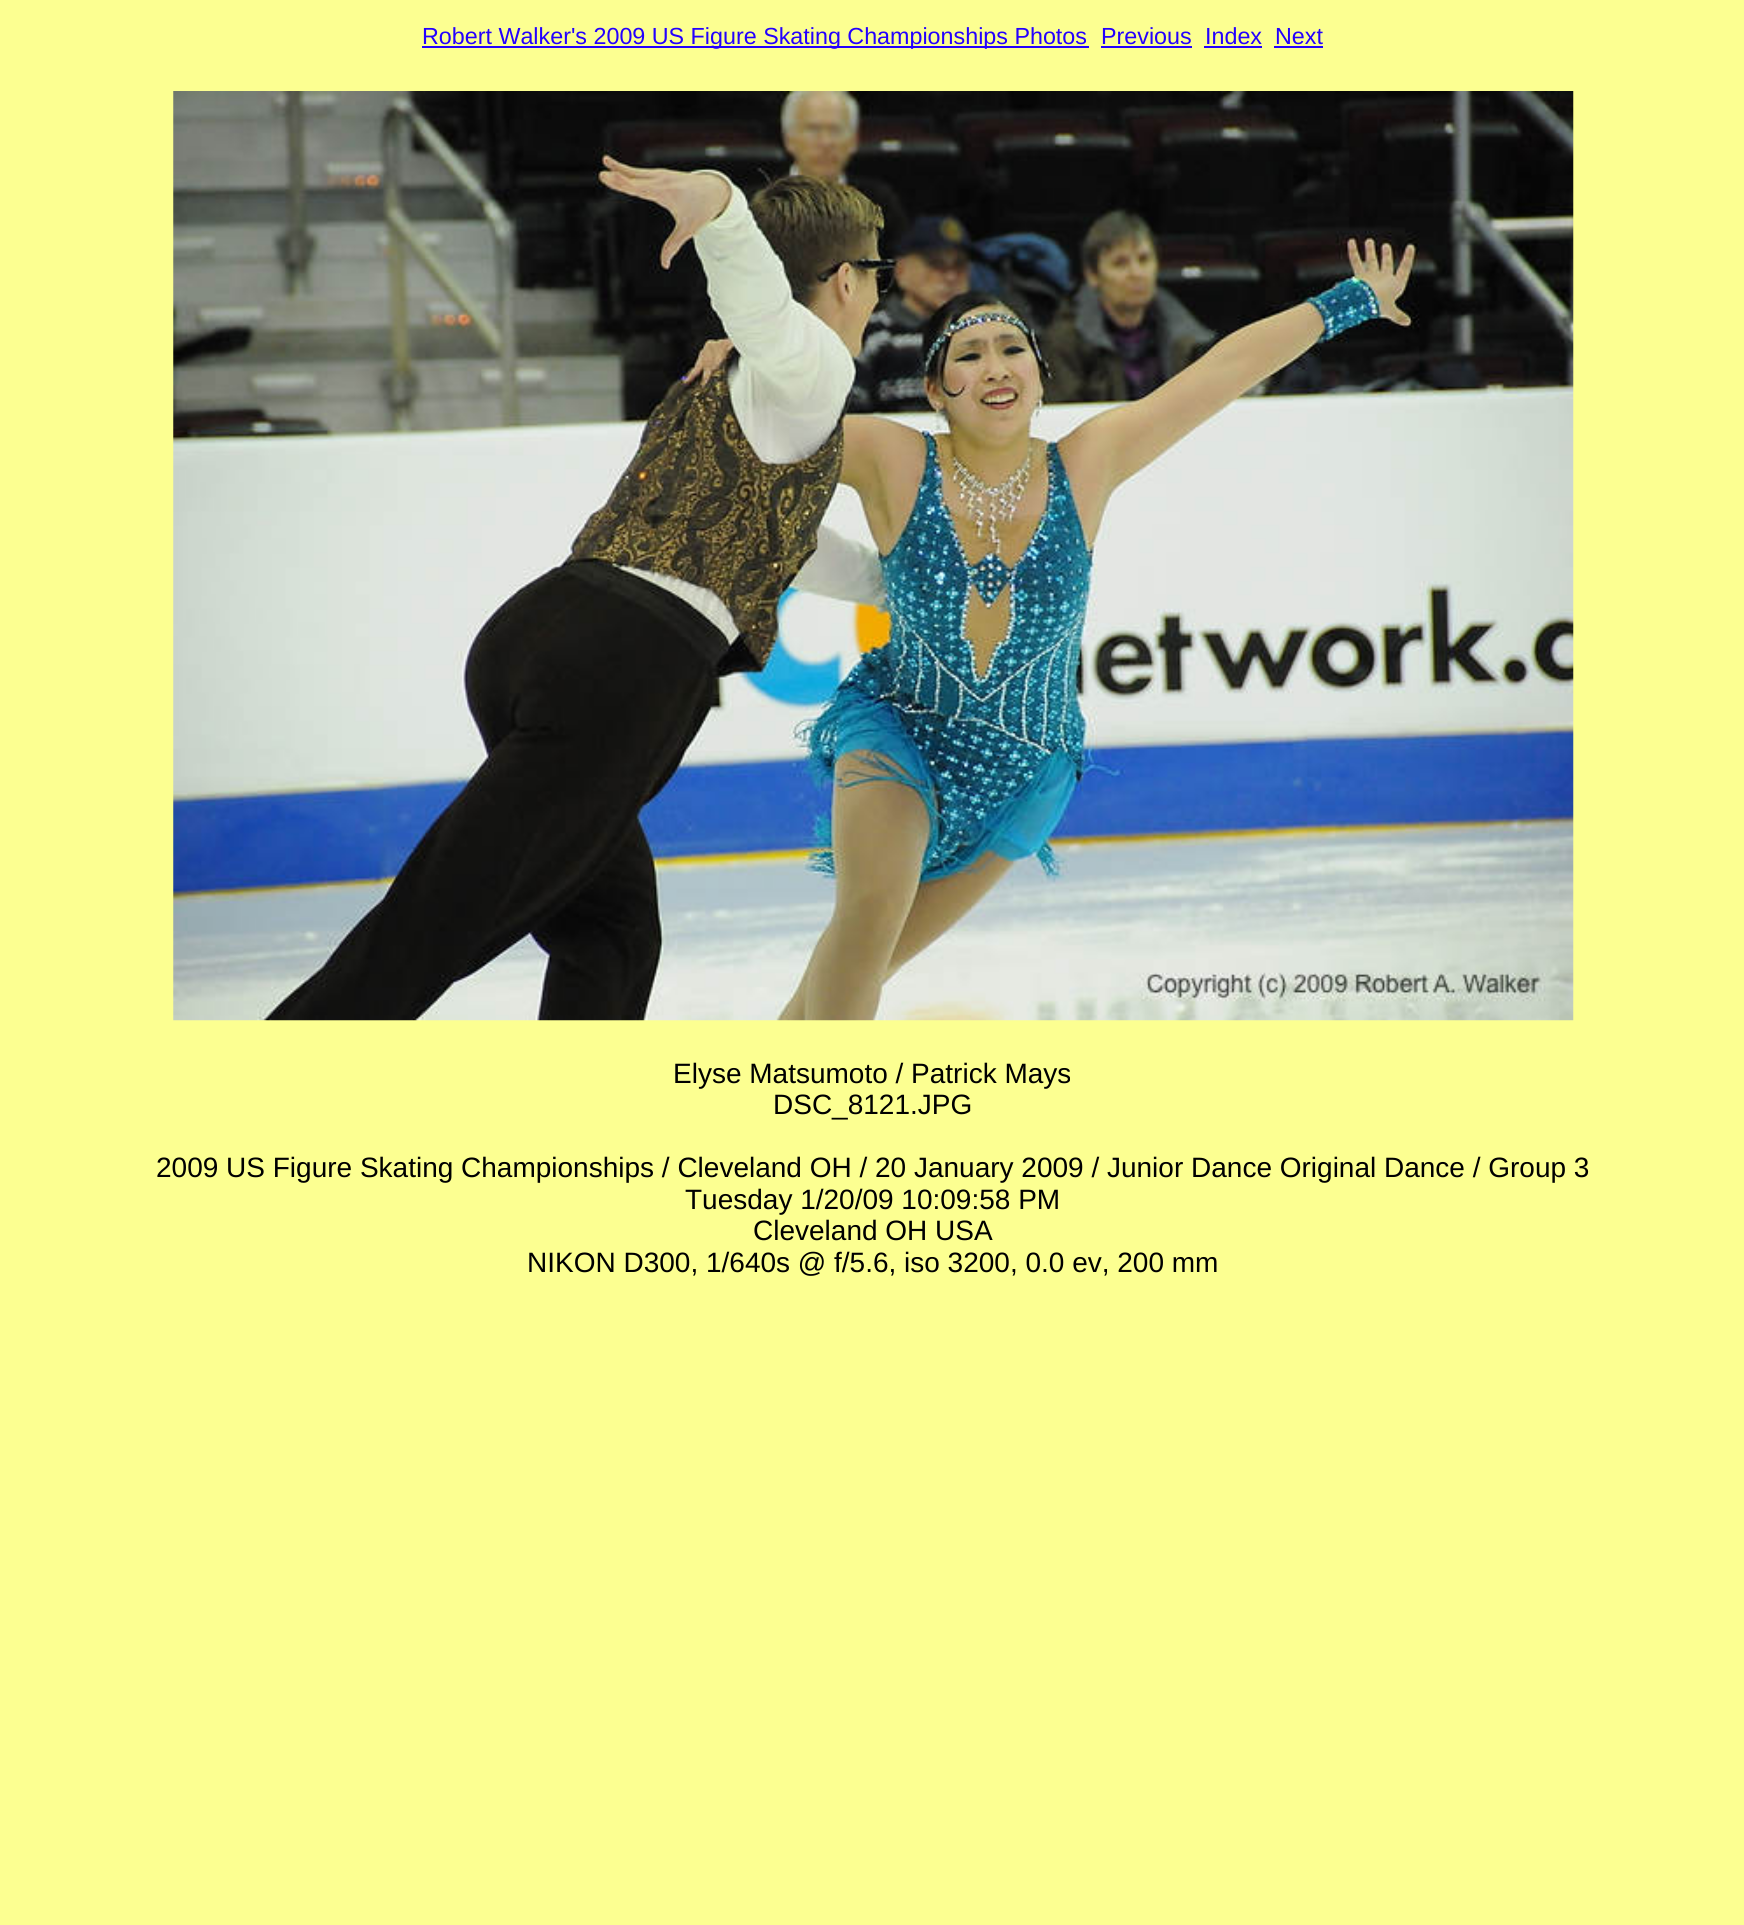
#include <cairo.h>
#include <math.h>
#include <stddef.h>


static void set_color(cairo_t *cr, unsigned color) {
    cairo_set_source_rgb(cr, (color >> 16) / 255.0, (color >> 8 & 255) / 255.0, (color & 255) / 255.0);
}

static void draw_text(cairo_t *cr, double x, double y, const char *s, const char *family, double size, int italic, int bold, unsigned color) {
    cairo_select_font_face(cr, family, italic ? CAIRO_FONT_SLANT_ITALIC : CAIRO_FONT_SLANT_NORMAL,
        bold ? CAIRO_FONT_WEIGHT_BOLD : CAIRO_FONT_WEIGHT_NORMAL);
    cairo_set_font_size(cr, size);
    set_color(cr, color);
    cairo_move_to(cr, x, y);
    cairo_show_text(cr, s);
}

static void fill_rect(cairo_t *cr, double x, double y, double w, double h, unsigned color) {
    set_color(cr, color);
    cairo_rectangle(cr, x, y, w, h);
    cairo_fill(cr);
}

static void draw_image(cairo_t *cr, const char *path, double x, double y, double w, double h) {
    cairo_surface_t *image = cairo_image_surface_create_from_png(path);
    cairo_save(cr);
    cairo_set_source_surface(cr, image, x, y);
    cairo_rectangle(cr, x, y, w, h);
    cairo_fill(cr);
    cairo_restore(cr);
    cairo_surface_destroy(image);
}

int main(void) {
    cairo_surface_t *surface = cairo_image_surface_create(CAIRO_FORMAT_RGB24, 1744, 1925);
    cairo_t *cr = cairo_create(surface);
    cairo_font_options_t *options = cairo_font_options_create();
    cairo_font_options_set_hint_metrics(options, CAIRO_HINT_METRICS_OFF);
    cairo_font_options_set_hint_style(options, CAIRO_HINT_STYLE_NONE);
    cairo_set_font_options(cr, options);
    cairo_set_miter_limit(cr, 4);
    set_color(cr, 0xFCFF91);
    cairo_paint(cr);
    fill_rect(cr, 422, 46, 667, 2, 0x2300FF);
    draw_text(cr, 422, 44, "Robert Walker's 2009 US Figure Skating Championships Photos", "Liberation Sans", 23.3, 0, 0, 0x2300FF);
    draw_text(cr, 1101, 44, "Previous", "Liberation Sans", 23.3, 0, 0, 0x2300FF);
    fill_rect(cr, 1101, 46, 91, 2, 0x2300FF);
    draw_text(cr, 1205, 44, "Index", "Liberation Sans", 23.3, 0, 0, 0x2300FF);
    fill_rect(cr, 1204, 46, 58, 2, 0x2300FF);
    draw_text(cr, 1275, 44, "Next", "Liberation Sans", 23.3, 0, 0, 0x2300FF);
    fill_rect(cr, 1274, 46, 49, 2, 0x2300FF);
    draw_image(cr, "assets/img1.png", 173, 91, 1401, 930);
    draw_text(cr, 673, 1083, "Elyse Matsumoto / Patrick Mays", "Liberation Sans", 28, 0, 0, 0x000000);
    draw_text(cr, 773, 1114, "DSC_8121.JPG", "Liberation Sans", 28, 0, 0, 0x000000);
    draw_text(cr, 156, 1177, "2009 US Figure Skating Championships / Cleveland OH / 20 January 2009 / Junior Dance Original Dance / Group 3", "Liberation Sans", 28, 0, 0, 0x000000);
    draw_text(cr, 685, 1209, "Tuesday 1/20/09 10:09:58 PM", "Liberation Sans", 28, 0, 0, 0x000000);
    draw_text(cr, 753, 1240, "Cleveland OH USA", "Liberation Sans", 28, 0, 0, 0x000000);
    draw_text(cr, 527, 1272, "NIKON D300, 1/640s @ f/5.6, iso 3200, 0.0 ev, 200 mm", "Liberation Sans", 28, 0, 0, 0x000000);
    cairo_surface_write_to_png(surface, "output.png");
    cairo_font_options_destroy(options);
    cairo_destroy(cr);
    cairo_surface_destroy(surface);
    return 0;
}
